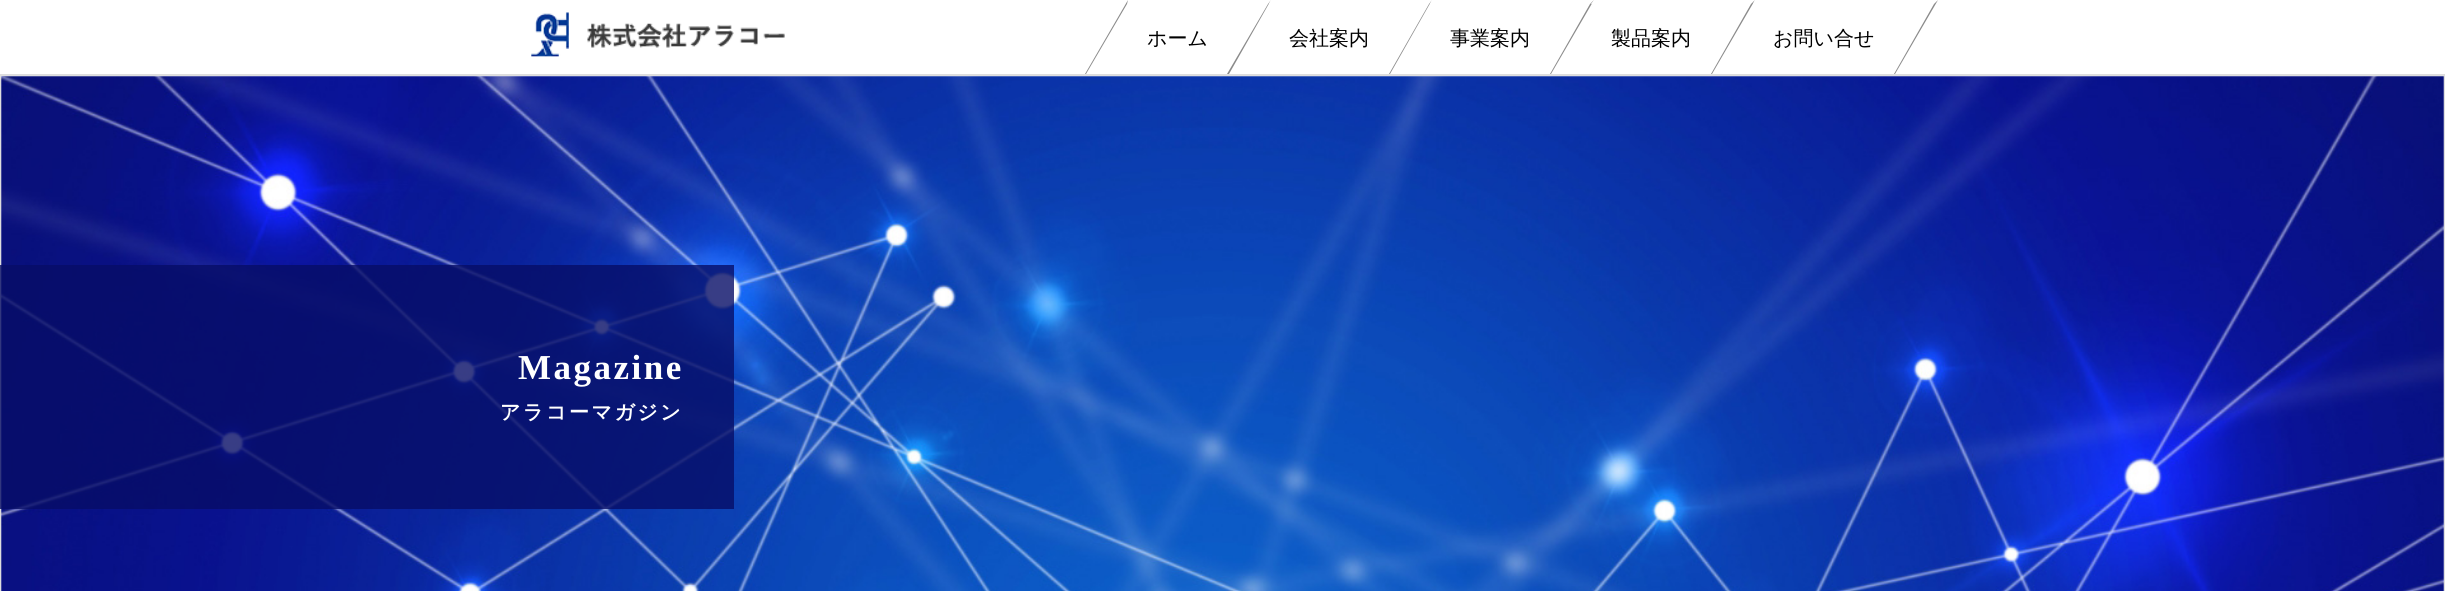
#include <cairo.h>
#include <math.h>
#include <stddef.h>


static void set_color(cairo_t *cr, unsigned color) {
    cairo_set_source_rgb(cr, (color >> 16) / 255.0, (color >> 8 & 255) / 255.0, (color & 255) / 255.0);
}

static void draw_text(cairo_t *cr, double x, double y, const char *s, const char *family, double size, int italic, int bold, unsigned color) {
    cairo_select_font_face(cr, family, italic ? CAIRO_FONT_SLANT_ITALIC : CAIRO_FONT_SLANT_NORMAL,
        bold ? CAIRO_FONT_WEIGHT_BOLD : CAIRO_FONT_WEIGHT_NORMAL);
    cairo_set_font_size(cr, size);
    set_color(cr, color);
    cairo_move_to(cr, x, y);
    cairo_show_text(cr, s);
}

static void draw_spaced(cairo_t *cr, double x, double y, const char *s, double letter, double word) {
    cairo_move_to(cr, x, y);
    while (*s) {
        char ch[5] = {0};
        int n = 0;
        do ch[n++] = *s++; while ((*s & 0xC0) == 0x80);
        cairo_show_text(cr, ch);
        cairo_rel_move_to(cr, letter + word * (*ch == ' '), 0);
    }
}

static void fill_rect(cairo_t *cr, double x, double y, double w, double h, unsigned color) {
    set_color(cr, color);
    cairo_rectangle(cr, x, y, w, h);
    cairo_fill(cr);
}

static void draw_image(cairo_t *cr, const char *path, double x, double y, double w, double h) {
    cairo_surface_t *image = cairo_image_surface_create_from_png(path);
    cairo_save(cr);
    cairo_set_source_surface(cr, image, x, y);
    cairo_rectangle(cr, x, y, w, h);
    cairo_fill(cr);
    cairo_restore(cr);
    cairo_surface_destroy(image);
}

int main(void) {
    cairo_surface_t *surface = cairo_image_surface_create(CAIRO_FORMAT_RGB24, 2445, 591);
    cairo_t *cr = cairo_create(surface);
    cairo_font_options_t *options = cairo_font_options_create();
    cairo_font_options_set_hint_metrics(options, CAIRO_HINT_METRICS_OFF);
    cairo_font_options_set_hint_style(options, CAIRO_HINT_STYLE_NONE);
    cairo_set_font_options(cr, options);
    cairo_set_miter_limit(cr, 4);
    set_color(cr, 0xFFFFFF);
    cairo_paint(cr);
    fill_rect(cr, 0, 74, 2445, 1, 0xDDDDDD);
    draw_image(cr, "assets/img1.png", 531, 12, 254, 45);
    set_color(cr, 0x8A8A8A);
    cairo_new_path(cr);
    cairo_move_to(cr, 1271, 0);
    cairo_line_to(cr, 1229, 74);
    cairo_line_to(cr, 1227, 74);
    cairo_line_to(cr, 1268, 4);
    cairo_close_path(cr);
    cairo_fill(cr);
    cairo_new_path(cr);
    cairo_move_to(cr, 1085, 74);
    cairo_line_to(cr, 1128, 0);
    cairo_line_to(cr, 1127, 4);
    cairo_line_to(cr, 1086, 74);
    cairo_close_path(cr);
    cairo_fill(cr);
    draw_text(cr, 1147, 45, "ホーム", "WenQuanYi Zen Hei Medium", 20, 0, 0, 0x000000);
    set_color(cr, 0xFFFFFF);
    cairo_new_path(cr);
    cairo_move_to(cr, 1271, 0);
    cairo_line_to(cr, 1432, 0);
    cairo_line_to(cr, 1429, 4);
    cairo_line_to(cr, 1269, 4);
    cairo_close_path(cr);
    cairo_fill(cr);
    set_color(cr, 0x8A8A8A);
    cairo_new_path(cr);
    cairo_move_to(cr, 1432, 0);
    cairo_line_to(cr, 1390, 74);
    cairo_line_to(cr, 1389, 74);
    cairo_line_to(cr, 1429, 4);
    cairo_close_path(cr);
    cairo_fill(cr);
    draw_text(cr, 1289, 45, "会社案内", "WenQuanYi Zen Hei Medium", 20, 0, 0, 0x000000);
    set_color(cr, 0xFFFFFF);
    cairo_new_path(cr);
    cairo_move_to(cr, 1432, 0);
    cairo_line_to(cr, 1594, 0);
    cairo_line_to(cr, 1590, 4);
    cairo_line_to(cr, 1430, 4);
    cairo_close_path(cr);
    cairo_fill(cr);
    set_color(cr, 0x8A8A8A);
    cairo_new_path(cr);
    cairo_move_to(cr, 1594, 0);
    cairo_line_to(cr, 1551, 74);
    cairo_line_to(cr, 1550, 74);
    cairo_line_to(cr, 1590, 4);
    cairo_close_path(cr);
    cairo_fill(cr);
    draw_text(cr, 1450, 45, "事業案内", "WenQuanYi Zen Hei Medium", 20, 0, 0, 0x000000);
    set_color(cr, 0xFFFFFF);
    cairo_new_path(cr);
    cairo_move_to(cr, 1594, 0);
    cairo_line_to(cr, 1755, 0);
    cairo_line_to(cr, 1751, 4);
    cairo_line_to(cr, 1591, 4);
    cairo_close_path(cr);
    cairo_fill(cr);
    set_color(cr, 0x8A8A8A);
    cairo_new_path(cr);
    cairo_move_to(cr, 1755, 0);
    cairo_line_to(cr, 1712, 74);
    cairo_line_to(cr, 1711, 74);
    cairo_line_to(cr, 1751, 4);
    cairo_close_path(cr);
    cairo_fill(cr);
    draw_text(cr, 1611, 45, "製品案内", "WenQuanYi Zen Hei Medium", 20, 0, 0, 0x000000);
    set_color(cr, 0xFFFFFF);
    cairo_new_path(cr);
    cairo_move_to(cr, 1755, 0);
    cairo_line_to(cr, 1938, 0);
    cairo_line_to(cr, 1934, 4);
    cairo_line_to(cr, 1753, 4);
    cairo_close_path(cr);
    cairo_fill(cr);
    set_color(cr, 0x8A8A8A);
    cairo_new_path(cr);
    cairo_move_to(cr, 1938, 0);
    cairo_line_to(cr, 1895, 74);
    cairo_line_to(cr, 1894, 74);
    cairo_line_to(cr, 1934, 4);
    cairo_close_path(cr);
    cairo_fill(cr);
    draw_text(cr, 1773, 45, "お問い合せ", "WenQuanYi Zen Hei Medium", 20, 0, 0, 0x000000);
    cairo_rectangle(cr, 0.5, 75.5, 2444, 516);
    set_color(cr, 0xDEDEDE);
    cairo_set_line_width(cr, 1);
    cairo_stroke(cr);
    draw_image(cr, "assets/img2.png", 1, 76, 2443, 515);
    cairo_set_source_rgba(cr, 0.027, 0.051, 0.404, 0.8);
    cairo_rectangle(cr, 0, 265, 734, 244);
    cairo_fill(cr);
    cairo_select_font_face(cr, "Liberation Serif", CAIRO_FONT_SLANT_NORMAL, CAIRO_FONT_WEIGHT_BOLD);
    cairo_set_font_size(cr, 35);
    set_color(cr, 0xFFFFFF);
    draw_spaced(cr, 518, 379, "Magazine", 2.5, 0);
    cairo_select_font_face(cr, "WenQuanYi Zen Hei", CAIRO_FONT_SLANT_NORMAL, CAIRO_FONT_WEIGHT_BOLD);
    cairo_set_font_size(cr, 20);
    draw_spaced(cr, 500, 419, "アラコーマガジン", 2.5, 0);
    cairo_surface_write_to_png(surface, "output.png");
    cairo_font_options_destroy(options);
    cairo_destroy(cr);
    cairo_surface_destroy(surface);
    return 0;
}
